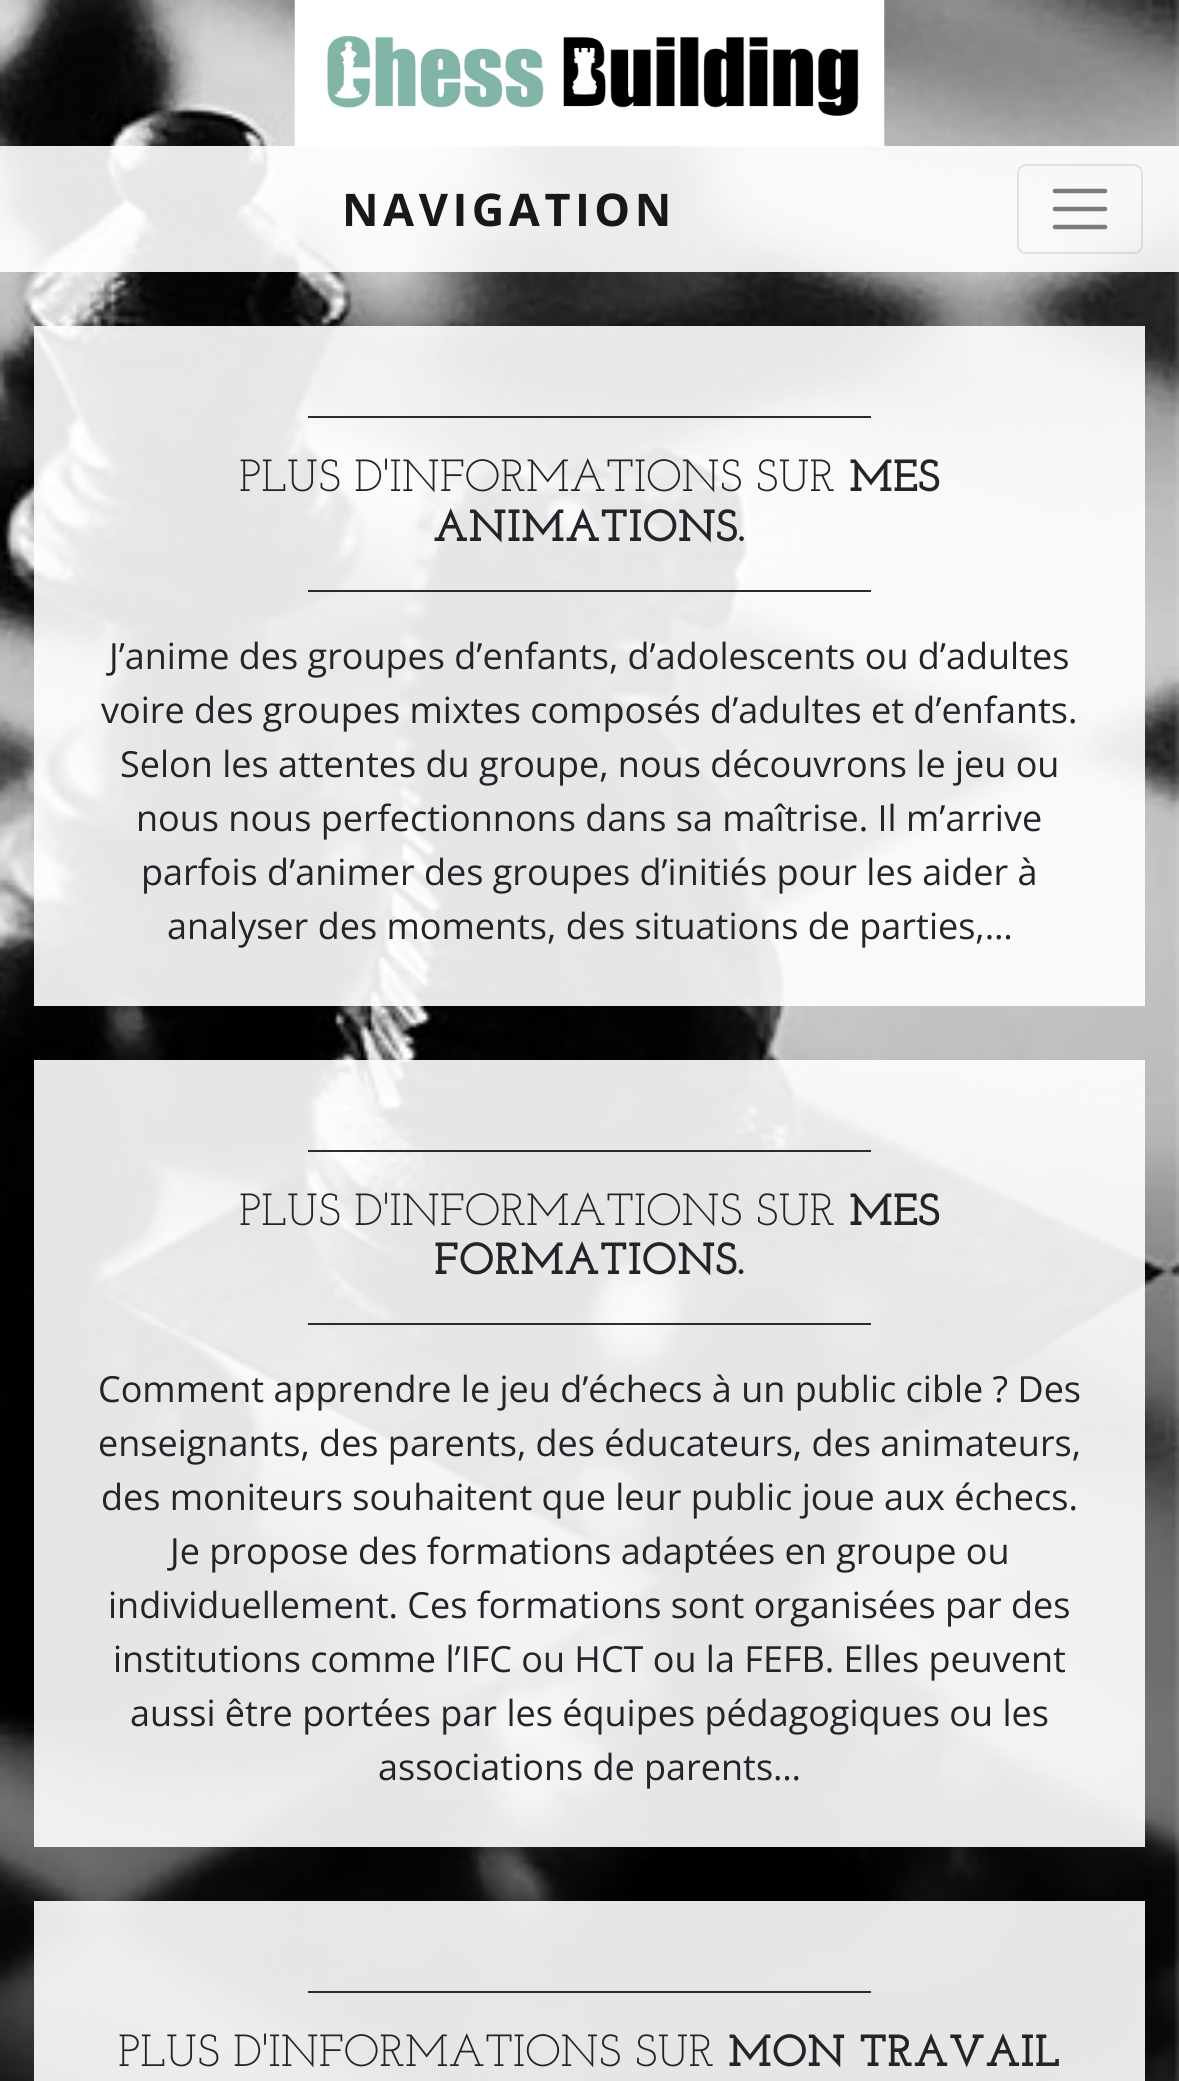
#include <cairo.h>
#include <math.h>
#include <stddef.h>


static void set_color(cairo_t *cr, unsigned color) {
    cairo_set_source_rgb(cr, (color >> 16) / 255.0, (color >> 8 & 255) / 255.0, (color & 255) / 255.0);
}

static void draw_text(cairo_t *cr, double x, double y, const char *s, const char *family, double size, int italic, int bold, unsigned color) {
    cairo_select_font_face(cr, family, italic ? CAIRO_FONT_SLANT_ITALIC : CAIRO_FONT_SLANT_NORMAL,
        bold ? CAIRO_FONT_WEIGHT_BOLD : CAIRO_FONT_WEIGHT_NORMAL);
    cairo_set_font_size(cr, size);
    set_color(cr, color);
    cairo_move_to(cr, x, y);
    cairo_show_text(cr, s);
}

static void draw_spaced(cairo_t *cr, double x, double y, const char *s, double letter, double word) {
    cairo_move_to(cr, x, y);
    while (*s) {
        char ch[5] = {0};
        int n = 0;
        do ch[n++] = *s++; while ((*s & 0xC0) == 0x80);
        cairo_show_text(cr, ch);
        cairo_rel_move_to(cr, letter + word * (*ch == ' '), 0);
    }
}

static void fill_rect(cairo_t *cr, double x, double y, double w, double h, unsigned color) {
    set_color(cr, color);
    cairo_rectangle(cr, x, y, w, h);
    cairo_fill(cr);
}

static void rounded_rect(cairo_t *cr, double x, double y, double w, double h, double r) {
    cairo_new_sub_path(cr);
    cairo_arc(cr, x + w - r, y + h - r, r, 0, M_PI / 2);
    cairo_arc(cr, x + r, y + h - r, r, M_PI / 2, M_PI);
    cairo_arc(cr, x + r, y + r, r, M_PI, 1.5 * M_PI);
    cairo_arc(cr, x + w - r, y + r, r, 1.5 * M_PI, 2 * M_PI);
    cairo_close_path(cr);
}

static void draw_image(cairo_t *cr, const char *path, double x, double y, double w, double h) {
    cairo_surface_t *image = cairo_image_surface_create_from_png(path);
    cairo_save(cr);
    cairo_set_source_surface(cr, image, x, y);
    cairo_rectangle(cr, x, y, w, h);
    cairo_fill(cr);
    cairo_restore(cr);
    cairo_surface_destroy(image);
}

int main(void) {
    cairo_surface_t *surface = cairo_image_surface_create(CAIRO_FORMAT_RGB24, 1179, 2081);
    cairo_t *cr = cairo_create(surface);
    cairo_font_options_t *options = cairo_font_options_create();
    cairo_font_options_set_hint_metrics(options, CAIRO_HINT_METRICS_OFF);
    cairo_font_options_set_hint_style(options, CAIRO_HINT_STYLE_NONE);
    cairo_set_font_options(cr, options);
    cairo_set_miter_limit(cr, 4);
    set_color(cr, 0xFFFFFF);
    cairo_paint(cr);
    draw_image(cr, "assets/img1.png", 0, 0, 1179, 2081);
    draw_image(cr, "assets/img2.png", 294, 0, 591, 147);
    cairo_set_source_rgba(cr, 1, 1, 1, 0.9);
    cairo_rectangle(cr, 0, 146, 1179, 126);
    cairo_fill(cr);
    cairo_select_font_face(cr, "Open Sans", CAIRO_FONT_SLANT_NORMAL, CAIRO_FONT_WEIGHT_BOLD);
    cairo_set_font_size(cr, 45);
    set_color(cr, 0x181818);
    draw_spaced(cr, 342, 226, "NAVIGATION", 4.5, 0);
    rounded_rect(cr, 1018, 165, 124, 88, 8);
    cairo_set_source_rgba(cr, 0, 0, 0, 0.1);
    cairo_stroke(cr);
    cairo_new_path(cr);
    cairo_move_to(cr, 1055, 191);
    cairo_line_to(cr, 1105, 191);
    cairo_move_to(cr, 1055, 209);
    cairo_line_to(cr, 1105, 209);
    cairo_move_to(cr, 1055, 227);
    cairo_line_to(cr, 1105, 227);
    set_color(cr, 0x7C7C7C);
    cairo_set_line_width(cr, 4.5);
    cairo_set_line_cap(cr, CAIRO_LINE_CAP_ROUND);
    cairo_stroke(cr);
    cairo_set_source_rgba(cr, 1, 1, 1, 0.9);
    cairo_rectangle(cr, 34, 326, 1111, 680);
    cairo_fill(cr);
    fill_rect(cr, 308, 416, 563, 2, 0x292B2C);
    draw_text(cr, 239, 491, "PLUS D'INFORMATIONS SUR", "Josefin Slab", 45, 0, 0, 0x212529);
    draw_text(cr, 849, 491, "MES", "Josefin Slab", 45, 0, 1, 0x212529);
    draw_text(cr, 433, 541, "ANIMATIONS.", "Josefin Slab", 45, 0, 1, 0x212529);
    fill_rect(cr, 308, 590, 563, 2, 0x292B2C);
    draw_text(cr, 109, 669, "J’anime des groupes d’enfants, d’adolescents ou d’adultes", "Open Sans", 36, 0, 0, 0x212529);
    draw_text(cr, 101, 723, "voire des groupes mixtes composés d’adultes et d’enfants.", "Open Sans", 36, 0, 0, 0x212529);
    draw_text(cr, 120, 777, "Selon les attentes du groupe, nous découvrons le jeu ou", "Open Sans", 36, 0, 0, 0x212529);
    draw_text(cr, 136, 831, "nous nous perfectionnons dans sa maîtrise. Il m’arrive", "Open Sans", 36, 0, 0, 0x212529);
    draw_text(cr, 141, 885, "parfois d’animer des groupes d’initiés pour les aider à", "Open Sans", 36, 0, 0, 0x212529);
    draw_text(cr, 167, 939, "analyser des moments, des situations de parties,…", "Open Sans", 36, 0, 0, 0x212529);
    cairo_set_source_rgba(cr, 1, 1, 1, 0.9);
    cairo_rectangle(cr, 34, 1060, 1111, 787);
    cairo_fill(cr);
    fill_rect(cr, 308, 1150, 563, 2, 0x292B2C);
    draw_text(cr, 239, 1225, "PLUS D'INFORMATIONS SUR", "Josefin Slab", 45, 0, 0, 0x212529);
    draw_text(cr, 849, 1225, "MES", "Josefin Slab", 45, 0, 1, 0x212529);
    draw_text(cr, 434, 1274, "FORMATIONS.", "Josefin Slab", 45, 0, 1, 0x212529);
    fill_rect(cr, 308, 1323, 563, 2, 0x292B2C);
    draw_text(cr, 98, 1402, "Comment apprendre le jeu d’échecs à un public cible ? Des", "Open Sans", 36, 0, 0, 0x212529);
    draw_text(cr, 98, 1456, "enseignants, des parents, des éducateurs, des animateurs,", "Open Sans", 36, 0, 0, 0x212529);
    draw_text(cr, 101, 1510, "des moniteurs souhaitent que leur public joue aux échecs.", "Open Sans", 36, 0, 0, 0x212529);
    draw_text(cr, 170, 1564, "Je propose des formations adaptées en groupe ou", "Open Sans", 36, 0, 0, 0x212529);
    draw_text(cr, 108, 1618, "individuellement. Ces formations sont organisées par des", "Open Sans", 36, 0, 0, 0x212529);
    draw_text(cr, 113, 1672, "institutions comme l’IFC ou HCT ou la FEFB. Elles peuvent", "Open Sans", 36, 0, 0, 0x212529);
    draw_text(cr, 130, 1726, "aussi être portées par les équipes pédagogiques ou les", "Open Sans", 36, 0, 0, 0x212529);
    draw_text(cr, 378, 1780, "associations de parents…", "Open Sans", 36, 0, 0, 0x212529);
    cairo_set_source_rgba(cr, 1, 1, 1, 0.9);
    cairo_rectangle(cr, 34, 1901, 1111, 180);
    cairo_fill(cr);
    fill_rect(cr, 308, 1991, 563, 2, 0x292B2C);
    draw_text(cr, 118, 2066, "PLUS D'INFORMATIONS SUR", "Josefin Slab", 45, 0, 0, 0x212529);
    draw_text(cr, 728, 2066, "MON TRAVAIL", "Josefin Slab", 45, 0, 1, 0x212529);
    cairo_surface_write_to_png(surface, "output.png");
    cairo_font_options_destroy(options);
    cairo_destroy(cr);
    cairo_surface_destroy(surface);
    return 0;
}
